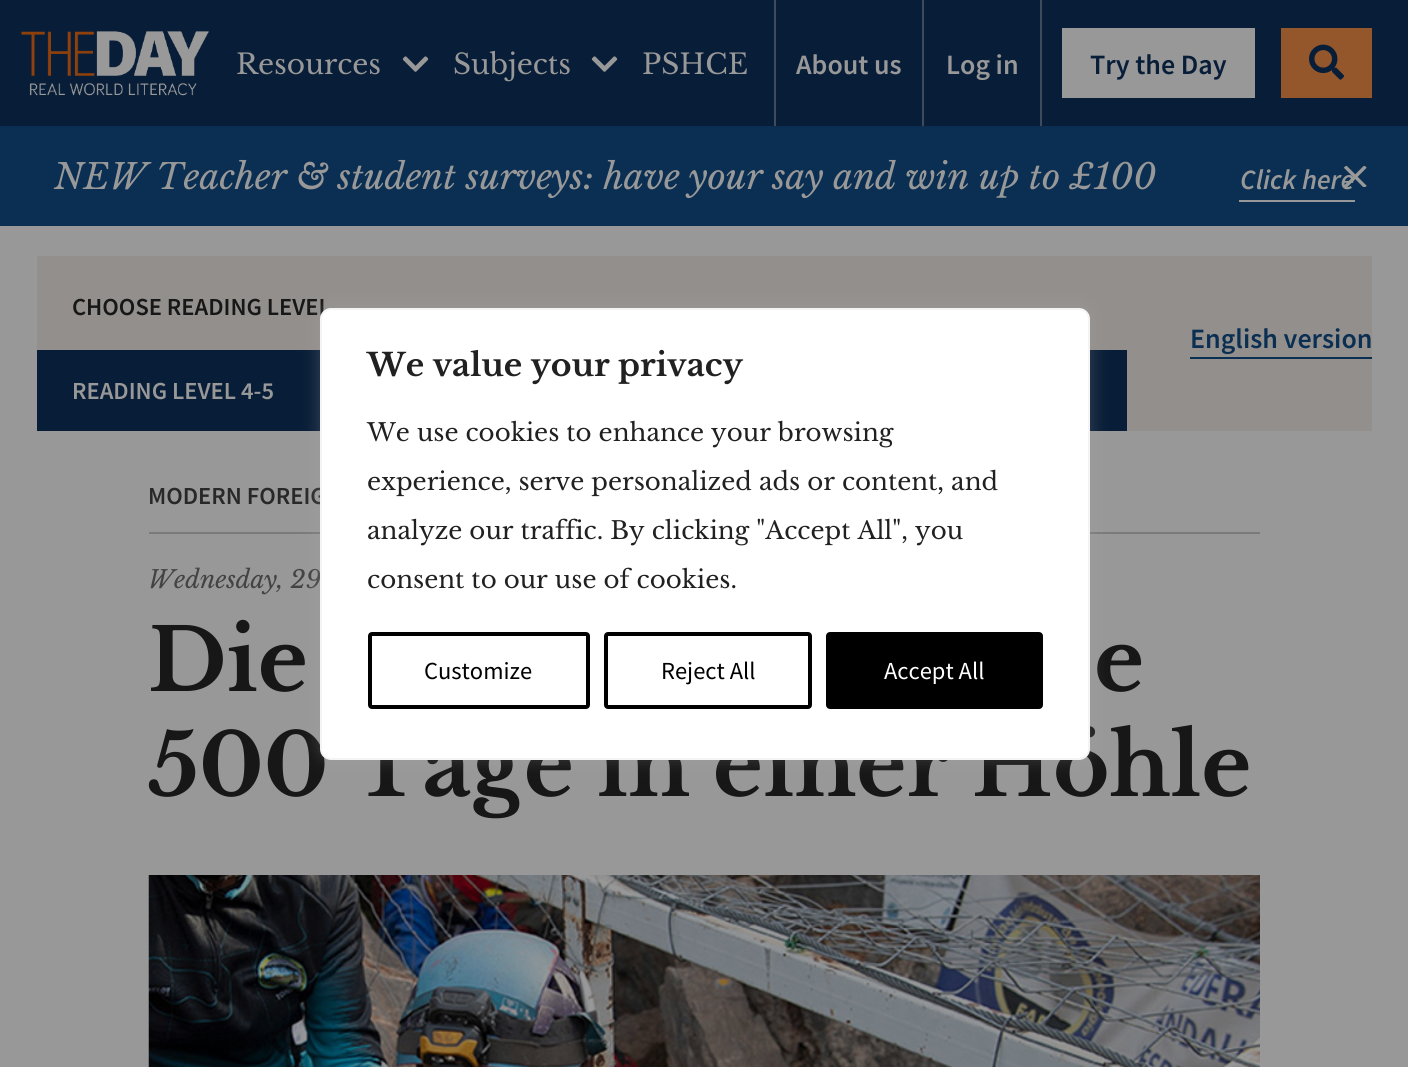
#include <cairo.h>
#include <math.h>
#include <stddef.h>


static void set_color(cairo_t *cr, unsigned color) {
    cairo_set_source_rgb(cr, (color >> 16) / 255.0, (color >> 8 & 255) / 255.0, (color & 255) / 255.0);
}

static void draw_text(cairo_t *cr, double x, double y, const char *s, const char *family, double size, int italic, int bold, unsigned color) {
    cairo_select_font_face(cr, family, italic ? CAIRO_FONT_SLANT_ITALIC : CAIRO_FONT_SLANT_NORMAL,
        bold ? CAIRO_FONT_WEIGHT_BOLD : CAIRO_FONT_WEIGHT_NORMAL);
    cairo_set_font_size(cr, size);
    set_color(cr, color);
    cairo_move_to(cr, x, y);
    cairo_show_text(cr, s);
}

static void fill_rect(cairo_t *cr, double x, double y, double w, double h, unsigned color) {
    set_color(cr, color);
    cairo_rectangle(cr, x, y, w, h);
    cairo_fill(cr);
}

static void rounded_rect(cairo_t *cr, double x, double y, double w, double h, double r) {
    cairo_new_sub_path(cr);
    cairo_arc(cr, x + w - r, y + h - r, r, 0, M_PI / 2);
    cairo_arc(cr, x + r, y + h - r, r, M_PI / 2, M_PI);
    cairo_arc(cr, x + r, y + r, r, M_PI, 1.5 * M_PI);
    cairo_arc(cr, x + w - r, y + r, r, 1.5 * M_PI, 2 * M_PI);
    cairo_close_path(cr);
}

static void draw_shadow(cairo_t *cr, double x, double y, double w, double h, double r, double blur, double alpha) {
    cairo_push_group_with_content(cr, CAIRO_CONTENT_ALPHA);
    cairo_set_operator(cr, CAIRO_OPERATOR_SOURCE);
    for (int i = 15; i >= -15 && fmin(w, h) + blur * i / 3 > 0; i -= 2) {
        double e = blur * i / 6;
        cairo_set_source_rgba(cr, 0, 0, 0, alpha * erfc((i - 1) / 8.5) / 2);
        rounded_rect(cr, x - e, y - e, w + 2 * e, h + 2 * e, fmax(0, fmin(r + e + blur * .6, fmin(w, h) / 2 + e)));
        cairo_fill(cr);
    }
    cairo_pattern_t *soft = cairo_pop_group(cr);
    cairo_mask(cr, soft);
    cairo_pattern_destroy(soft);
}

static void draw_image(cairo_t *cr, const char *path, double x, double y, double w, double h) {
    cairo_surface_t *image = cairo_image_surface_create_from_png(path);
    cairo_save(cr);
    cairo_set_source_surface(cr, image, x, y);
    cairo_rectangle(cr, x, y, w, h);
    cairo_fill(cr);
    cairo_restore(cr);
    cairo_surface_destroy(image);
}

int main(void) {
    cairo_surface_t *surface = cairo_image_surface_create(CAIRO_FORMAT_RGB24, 1408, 1067);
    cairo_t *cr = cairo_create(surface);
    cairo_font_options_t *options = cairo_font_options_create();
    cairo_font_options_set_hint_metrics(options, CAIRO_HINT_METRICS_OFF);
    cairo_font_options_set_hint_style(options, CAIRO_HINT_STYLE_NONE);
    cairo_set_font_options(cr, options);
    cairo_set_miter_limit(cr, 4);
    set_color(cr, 0x989898);
    cairo_paint(cr);
    fill_rect(cr, 0, 0, 1408, 126, 0x081D37);
    draw_image(cr, "assets/img1.png", 21, 31, 188, 65);
    draw_text(cr, 236, 74, "Resources", "Libre Baskerville", 28, 0, 0, 0x989898);
    draw_image(cr, "assets/img2.png", 402, 56, 27, 16);
    draw_text(cr, 453, 74, "Subjects", "Libre Baskerville", 28, 0, 0, 0x989898);
    draw_image(cr, "assets/img2.png", 591, 56, 27, 16);
    draw_text(cr, 642, 74, "PSHCE", "Libre Baskerville", 28, 0, 0, 0x989898);
    fill_rect(cr, 922, 0, 2, 126, 0x3E4B5C);
    fill_rect(cr, 774, 0, 2, 126, 0x3E4B5C);
    draw_text(cr, 796, 74, "About us", "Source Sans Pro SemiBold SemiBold", 28, 0, 0, 0x989898);
    fill_rect(cr, 1040, 0, 2, 126, 0x3E4B5C);
    draw_text(cr, 946, 74, "Log in", "Source Sans Pro SemiBold SemiBold", 28, 0, 0, 0x989898);
    fill_rect(cr, 1062, 28, 193, 70, 0x989898);
    draw_text(cr, 1090, 74, "Try the Day", "Source Sans Pro SemiBold SemiBold", 28, 0, 0, 0x081D37);
    fill_rect(cr, 1281, 28, 91, 70, 0x93572B);
    draw_image(cr, "assets/img3.png", 1309, 44, 35, 36);
    fill_rect(cr, 0, 126, 1408, 100, 0x0A2F53);
    draw_text(cr, 54, 189, "NEW Teacher & student surveys: have your say and win up to £100", "Libre Baskerville", 35, 1, 0, 0x989898);
    fill_rect(cr, 1239, 200, 116, 2, 0x989898);
    draw_text(cr, 1240, 189, "Click here", "Source Sans Pro SemiBold SemiBold", 28, 1, 0, 0x989898);
    cairo_save(cr);
    cairo_rectangle(cr, 1344, 166, 23, 21);
    cairo_clip(cr);
    cairo_new_path(cr);
    cairo_move_to(cr, 1345, 166.5);
    cairo_line_to(cr, 1365.5, 187);
    cairo_move_to(cr, 1365.5, 166.5);
    cairo_line_to(cr, 1345, 187);
    set_color(cr, 0x999999);
    cairo_set_line_width(cr, 3.4);
    cairo_stroke(cr);
    cairo_restore(cr);
    fill_rect(cr, 37, 256, 1335, 175, 0x928F8C);
    draw_text(cr, 72, 315, "CHOOSE READING LEVEL", "Source Sans Pro SemiBold SemiBold", 24.5, 0, 0, 0x171717);
    fill_rect(cr, 37, 350, 1090, 81, 0x081D37);
    draw_text(cr, 72, 399, "READING LEVEL 4-5", "Source Sans Pro SemiBold SemiBold", 24.5, 0, 0, 0x989898);
    fill_rect(cr, 1190, 357, 182, 2, 0x0A2F53);
    draw_text(cr, 1190, 348, "English version", "Source Sans Pro SemiBold SemiBold", 28, 0, 0, 0x0A2F53);
    fill_rect(cr, 149, 532, 1111, 2, 0x7A7A7A);
    draw_text(cr, 148, 504, "MODERN FOREIG", "Source Sans Pro SemiBold SemiBold", 24.5, 0, 0, 0x282828);
    draw_text(cr, 148, 588, "Wednesday, 29", "Libre Baskerville", 24.5, 1, 0, 0x434343);
    draw_text(cr, 148, 691, "Die", "Libre Baskerville", 85.75, 0, 1, 0x171717);
    draw_text(cr, 1094, 691, "e", "Libre Baskerville", 85.75, 0, 1, 0x171717);
    draw_text(cr, 148, 796, "500 Tage in einer Höhle", "Libre Baskerville", 85.75, 0, 1, 0x171717);
    draw_image(cr, "assets/img4.png", 148, 875, 1112, 192);
    set_color(cr, 0xACABAB);
    draw_shadow(cr, 320, 306, 770, 452, 11, 9, 0.3);
    set_color(cr, 0xFFFFFF);
    rounded_rect(cr, 321, 309, 768, 450, 10);
    cairo_fill_preserve(cr);
    set_color(cr, 0xF4F4F4);
    cairo_stroke(cr);
    draw_text(cr, 367, 376, "We value your privacy", "Libre Baskerville", 31.5, 0, 1, 0x212121);
    draw_text(cr, 367, 441, "We use cookies to enhance your browsing", "Libre Baskerville", 24.5, 0, 0, 0x212121);
    draw_text(cr, 367, 490, "experience, serve personalized ads or content, and", "Libre Baskerville", 24.5, 0, 0, 0x212121);
    draw_text(cr, 367, 539, "analyze our traffic. By clicking \"Accept All\", you", "Libre Baskerville", 24.5, 0, 0, 0x212121);
    draw_text(cr, 367, 588, "consent to our use of cookies.", "Libre Baskerville", 24.5, 0, 0, 0x212121);
    rounded_rect(cr, 370, 634, 218, 73, 2);
    set_color(cr, 0x000000);
    cairo_set_line_width(cr, 4);
    cairo_stroke(cr);
    draw_text(cr, 424, 679, "Customize", "Source Sans Pro", 24.5, 0, 0, 0x000000);
    rounded_rect(cr, 606, 634, 204, 73, 2);
    cairo_stroke(cr);
    draw_text(cr, 661, 679, "Reject All", "Source Sans Pro", 24.5, 0, 0, 0x000000);
    rounded_rect(cr, 828, 634, 213, 73, 2);
    cairo_fill_preserve(cr);
    cairo_stroke(cr);
    draw_text(cr, 884, 679, "Accept All", "Source Sans Pro", 24.5, 0, 0, 0xFFFFFF);
    cairo_surface_write_to_png(surface, "output.png");
    cairo_font_options_destroy(options);
    cairo_destroy(cr);
    cairo_surface_destroy(surface);
    return 0;
}
